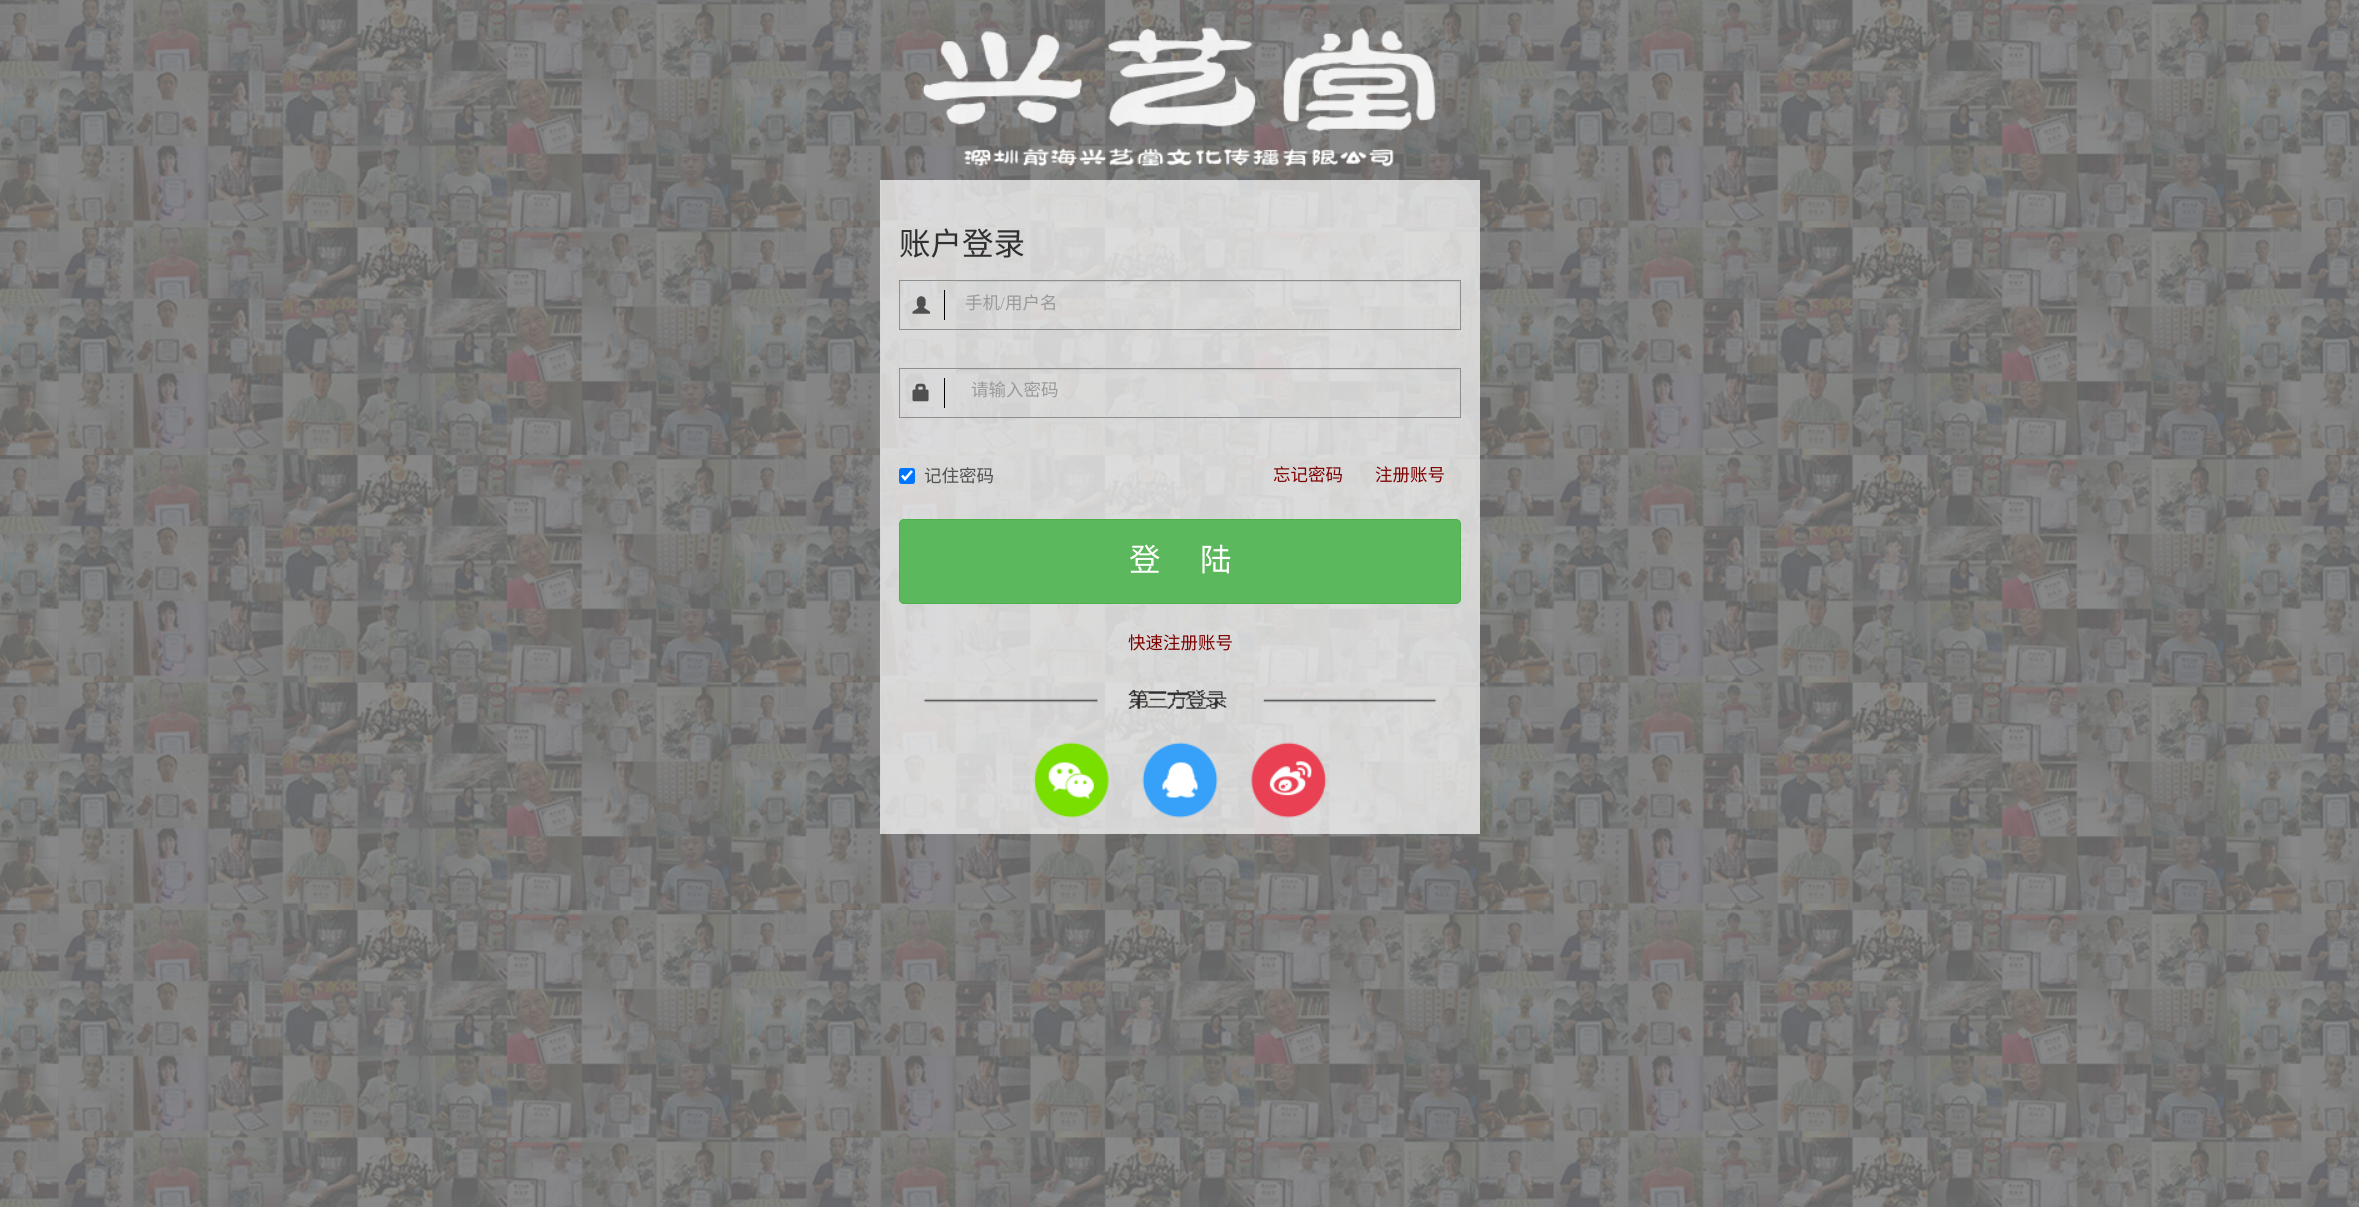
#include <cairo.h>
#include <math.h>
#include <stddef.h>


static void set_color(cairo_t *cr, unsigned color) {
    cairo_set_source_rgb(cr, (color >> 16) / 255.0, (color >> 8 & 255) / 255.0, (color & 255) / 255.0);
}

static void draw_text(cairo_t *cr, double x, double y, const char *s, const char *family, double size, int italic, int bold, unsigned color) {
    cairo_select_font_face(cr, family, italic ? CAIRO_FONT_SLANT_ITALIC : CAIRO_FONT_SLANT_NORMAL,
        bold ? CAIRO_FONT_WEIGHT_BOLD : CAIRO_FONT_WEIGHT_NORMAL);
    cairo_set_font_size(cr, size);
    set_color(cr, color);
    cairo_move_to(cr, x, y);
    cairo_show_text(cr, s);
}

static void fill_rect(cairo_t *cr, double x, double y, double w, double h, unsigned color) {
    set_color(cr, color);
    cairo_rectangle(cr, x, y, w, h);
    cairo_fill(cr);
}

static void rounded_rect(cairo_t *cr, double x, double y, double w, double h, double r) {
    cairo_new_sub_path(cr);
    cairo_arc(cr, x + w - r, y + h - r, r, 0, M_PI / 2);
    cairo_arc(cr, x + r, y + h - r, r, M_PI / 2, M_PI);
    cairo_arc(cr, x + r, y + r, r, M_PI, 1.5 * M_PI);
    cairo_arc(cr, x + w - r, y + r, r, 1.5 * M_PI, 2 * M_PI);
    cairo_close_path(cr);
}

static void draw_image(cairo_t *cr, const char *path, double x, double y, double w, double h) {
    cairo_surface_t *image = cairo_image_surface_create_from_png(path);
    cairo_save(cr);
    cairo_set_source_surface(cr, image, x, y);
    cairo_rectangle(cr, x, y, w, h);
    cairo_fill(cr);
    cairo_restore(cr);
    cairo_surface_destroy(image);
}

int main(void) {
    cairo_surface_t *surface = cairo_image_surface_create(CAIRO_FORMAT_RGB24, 2359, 1207);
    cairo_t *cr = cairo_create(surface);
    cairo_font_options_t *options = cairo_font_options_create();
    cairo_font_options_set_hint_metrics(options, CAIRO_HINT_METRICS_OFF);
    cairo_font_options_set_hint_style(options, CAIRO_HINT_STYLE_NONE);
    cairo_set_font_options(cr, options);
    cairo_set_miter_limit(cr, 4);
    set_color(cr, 0xFFFFFF);
    cairo_paint(cr);
    draw_image(cr, "assets/img1.png", 0, 0, 2359, 1207);
    draw_image(cr, "assets/img2.png", 922, 27, 514, 140);
    cairo_set_source_rgba(cr, 1, 1, 1, 0.7);
    cairo_rectangle(cr, 880, 180, 600, 654);
    cairo_fill(cr);
    draw_text(cr, 899, 255, "账户登录", "Noto Sans CJK SC", 31.5, 0, 0, 0x303030);
    cairo_rectangle(cr, 899.5, 280.5, 561, 49);
    set_color(cr, 0x8E8E8E);
    cairo_set_line_width(cr, 1);
    cairo_stroke(cr);
    fill_rect(cr, 944, 290, 1, 30, 0x000000);
    draw_image(cr, "assets/img3.png", 912, 296, 18, 18);
    cairo_set_source_rgba(cr, 0, 0, 0, 0.07);
    cairo_new_path(cr);
    cairo_move_to(cr, 959, 282);
    cairo_line_to(cr, 1458, 282);
    cairo_curve_to(cr, 1459, 282, 1460, 284, 1460, 285);
    cairo_curve_to(cr, 1460, 283, 1460, 281, 1458, 281);
    cairo_line_to(cr, 958, 281);
    cairo_curve_to(cr, 956, 281, 956, 283, 956, 285);
    cairo_curve_to(cr, 956, 284, 957, 282, 959, 282);
    cairo_close_path(cr);
    cairo_fill(cr);
    draw_text(cr, 965, 309, "手机", "Noto Sans CJK SC", 17.5, 0, 0, 0x999999);
    draw_text(cr, 1000, 309, "/", "Liberation Serif", 17.5, 0, 0, 0x999999);
    draw_text(cr, 1005, 309, "用户名", "Noto Sans CJK SC", 17.5, 0, 0, 0x999999);
    cairo_rectangle(cr, 899.5, 368.5, 561, 49);
    set_color(cr, 0x8E8E8E);
    cairo_stroke(cr);
    fill_rect(cr, 944, 378, 1, 30, 0x000000);
    draw_image(cr, "assets/img4.png", 912, 383, 17, 19);
    cairo_set_source_rgba(cr, 0, 0, 0, 0.07);
    cairo_new_path(cr);
    cairo_move_to(cr, 961, 370);
    cairo_line_to(cr, 1455, 370);
    cairo_curve_to(cr, 1458, 370, 1460, 372, 1460, 375);
    cairo_line_to(cr, 1460, 374);
    cairo_curve_to(cr, 1460, 371, 1458, 369, 1455, 369);
    cairo_line_to(cr, 961, 369);
    cairo_curve_to(cr, 958, 369, 956, 371, 956, 374);
    cairo_line_to(cr, 956, 375);
    cairo_curve_to(cr, 956, 372, 958, 370, 961, 370);
    cairo_close_path(cr);
    cairo_fill(cr);
    draw_text(cr, 971, 396, "请输入密码", "Noto Sans CJK SC", 17.5, 0, 0, 0x999999);
    set_color(cr, 0x0075FF);
    rounded_rect(cr, 899, 468, 16, 16, 2.5);
    cairo_fill(cr);
    cairo_new_path(cr);
    cairo_move_to(cr, 902, 475.5);
    cairo_line_to(cr, 905, 479);
    cairo_line_to(cr, 912, 471);
    set_color(cr, 0xFFFFFF);
    cairo_set_line_width(cr, 2.6);
    cairo_stroke(cr);
    draw_text(cr, 924, 482, "记住密码", "Noto Sans CJK SC", 17.5, 0, 0, 0x505050);
    draw_text(cr, 1273, 481, "忘记密码", "Noto Sans CJK SC", 17.5, 0, 0, 0x7D0000);
    draw_text(cr, 1375, 481, "注册账号", "Noto Sans CJK SC", 17.5, 0, 0, 0x7D0000);
    set_color(cr, 0x5CB85C);
    rounded_rect(cr, 899.5, 519.5, 561, 84, 4.5);
    cairo_fill_preserve(cr);
    set_color(cr, 0x4CAE4C);
    cairo_set_line_width(cr, 1);
    cairo_stroke(cr);
    draw_text(cr, 1129, 571, "登", "Noto Sans CJK SC", 31.5, 0, 0, 0xFFFFFF);
    draw_text(cr, 1200, 571, "陆", "Noto Sans CJK SC", 31.5, 0, 0, 0xFFFFFF);
    draw_text(cr, 1128, 649, "快速注册账号", "Noto Sans CJK SC", 17.5, 0, 0, 0x7D0000);
    draw_image(cr, "assets/img5.png", 923, 689, 514, 129);
    cairo_surface_write_to_png(surface, "output.png");
    cairo_font_options_destroy(options);
    cairo_destroy(cr);
    cairo_surface_destroy(surface);
    return 0;
}
